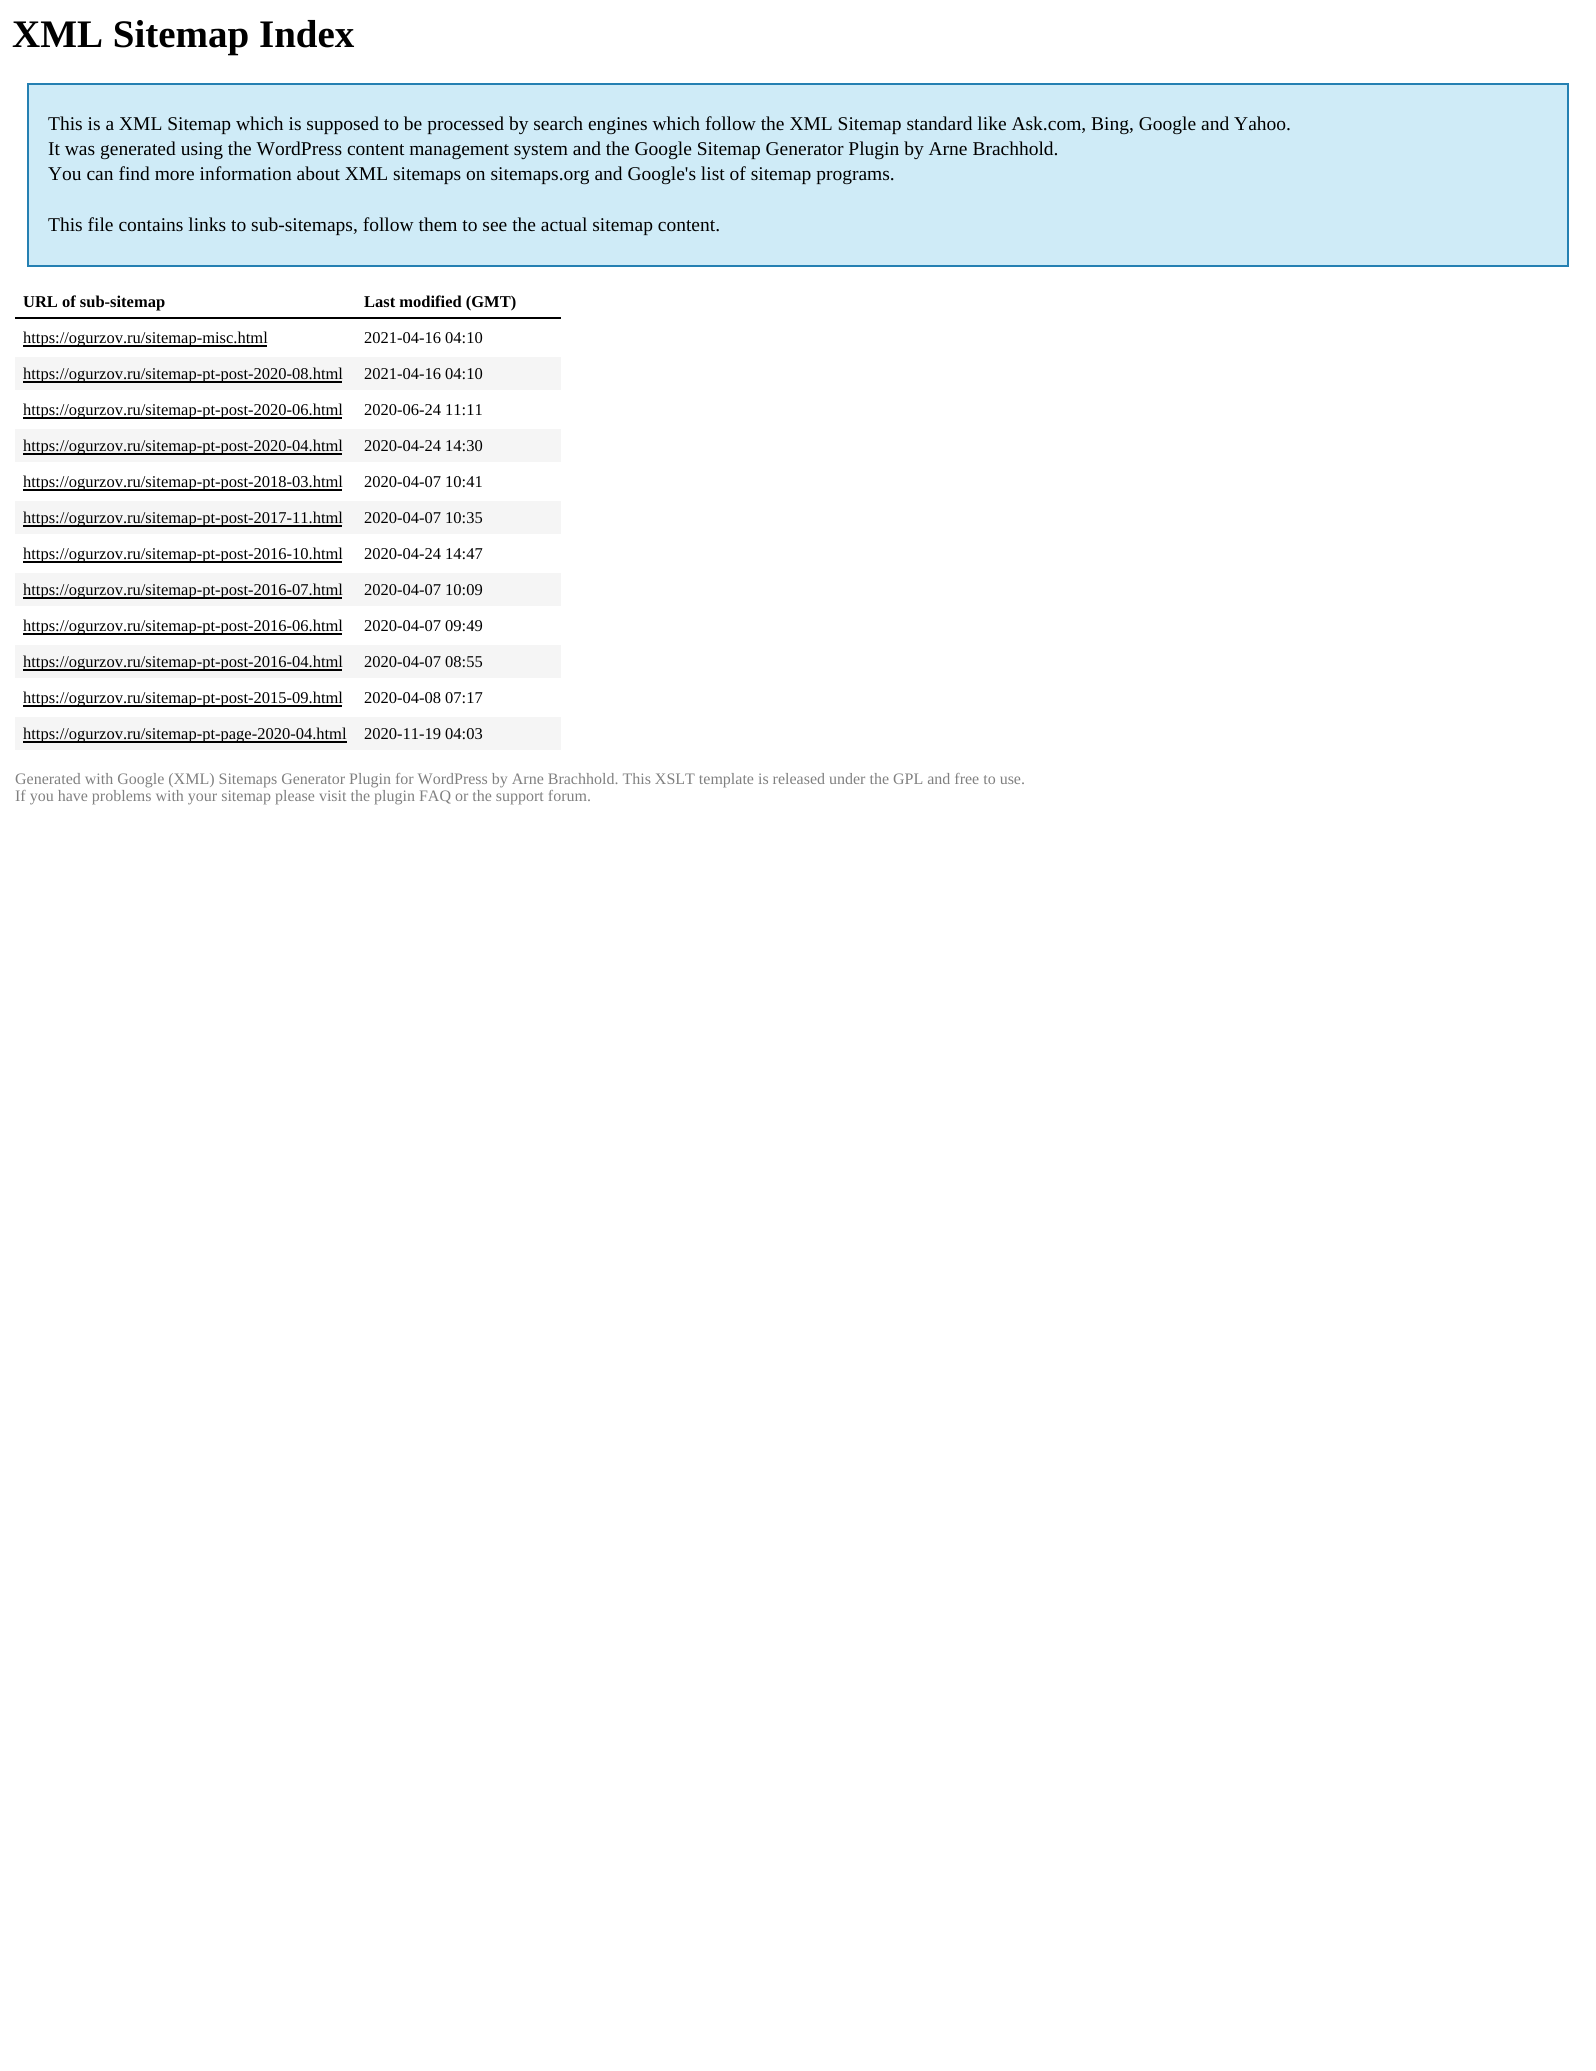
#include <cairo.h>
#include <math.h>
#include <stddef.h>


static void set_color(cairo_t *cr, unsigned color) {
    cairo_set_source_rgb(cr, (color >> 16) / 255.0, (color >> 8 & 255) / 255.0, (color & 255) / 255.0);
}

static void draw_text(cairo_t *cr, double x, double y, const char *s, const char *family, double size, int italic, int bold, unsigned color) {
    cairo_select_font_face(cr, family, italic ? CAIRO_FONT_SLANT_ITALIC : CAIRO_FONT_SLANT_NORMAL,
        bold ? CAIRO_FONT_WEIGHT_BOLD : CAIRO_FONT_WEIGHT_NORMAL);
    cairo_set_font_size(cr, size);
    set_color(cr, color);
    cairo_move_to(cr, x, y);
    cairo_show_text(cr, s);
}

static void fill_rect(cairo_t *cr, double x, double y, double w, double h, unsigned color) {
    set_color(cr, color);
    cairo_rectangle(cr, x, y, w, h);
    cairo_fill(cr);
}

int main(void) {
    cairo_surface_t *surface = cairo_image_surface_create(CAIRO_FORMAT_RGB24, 1596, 2071);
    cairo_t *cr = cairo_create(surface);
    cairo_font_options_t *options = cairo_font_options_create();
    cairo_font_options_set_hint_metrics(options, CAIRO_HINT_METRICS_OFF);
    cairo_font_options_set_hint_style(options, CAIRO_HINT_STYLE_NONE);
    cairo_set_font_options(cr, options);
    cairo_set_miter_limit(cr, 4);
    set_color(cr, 0xFFFFFF);
    cairo_paint(cr);
    draw_text(cr, 12, 47, "XML Sitemap Index", "Liberation Serif", 39, 0, 1, 0x000000);
    set_color(cr, 0xCFEBF7);
    cairo_rectangle(cr, 28, 84, 1540, 182);
    cairo_fill_preserve(cr);
    set_color(cr, 0x2580B2);
    cairo_stroke(cr);
    draw_text(cr, 48, 130, "This is a XML Sitemap which is supposed to be processed by search engines which follow the XML Sitemap standard like Ask.com, Bing, Google and Yahoo.", "Liberation Serif", 19.5, 0, 0, 0x000000);
    draw_text(cr, 48, 155, "It was generated using the WordPress content management system and the Google Sitemap Generator Plugin by Arne Brachhold.", "Liberation Serif", 19.5, 0, 0, 0x000000);
    draw_text(cr, 48, 180, "You can find more information about XML sitemaps on sitemaps.org and Google's list of sitemap programs.", "Liberation Serif", 19.5, 0, 0, 0x000000);
    draw_text(cr, 48, 231, "This file contains links to sub-sitemaps, follow them to see the actual sitemap content.", "Liberation Serif", 19.5, 0, 0, 0x000000);
    fill_rect(cr, 15, 317, 546, 2, 0x000000);
    draw_text(cr, 23, 307, "URL of sub-sitemap", "Liberation Serif", 16.5, 0, 1, 0x000000);
    draw_text(cr, 364, 307, "Last modified (GMT)", "Liberation Serif", 16.5, 0, 1, 0x000000);
    fill_rect(cr, 23, 345, 244, 2, 0x000000);
    draw_text(cr, 23, 343, "https://ogurzov.ru/sitemap-misc.html", "Liberation Serif", 16.5, 0, 0, 0x000000);
    draw_text(cr, 364, 343, "2021-04-16 04:10", "Liberation Serif", 16.5, 0, 0, 0x000000);
    fill_rect(cr, 15, 357, 546, 33, 0xF5F5F5);
    fill_rect(cr, 23, 381, 319, 2, 0x000000);
    draw_text(cr, 23, 379, "https://ogurzov.ru/sitemap-pt-post-2020-08.html", "Liberation Serif", 16.5, 0, 0, 0x000000);
    draw_text(cr, 364, 379, "2021-04-16 04:10", "Liberation Serif", 16.5, 0, 0, 0x000000);
    fill_rect(cr, 23, 417, 319, 2, 0x000000);
    draw_text(cr, 23, 415, "https://ogurzov.ru/sitemap-pt-post-2020-06.html", "Liberation Serif", 16.5, 0, 0, 0x000000);
    draw_text(cr, 364, 415, "2020-06-24 11:11", "Liberation Serif", 16.5, 0, 0, 0x000000);
    fill_rect(cr, 15, 429, 546, 33, 0xF5F5F5);
    fill_rect(cr, 23, 453, 319, 2, 0x000000);
    draw_text(cr, 23, 451, "https://ogurzov.ru/sitemap-pt-post-2020-04.html", "Liberation Serif", 16.5, 0, 0, 0x000000);
    draw_text(cr, 364, 451, "2020-04-24 14:30", "Liberation Serif", 16.5, 0, 0, 0x000000);
    fill_rect(cr, 23, 489, 319, 2, 0x000000);
    draw_text(cr, 23, 487, "https://ogurzov.ru/sitemap-pt-post-2018-03.html", "Liberation Serif", 16.5, 0, 0, 0x000000);
    draw_text(cr, 364, 487, "2020-04-07 10:41", "Liberation Serif", 16.5, 0, 0, 0x000000);
    fill_rect(cr, 15, 501, 546, 33, 0xF5F5F5);
    fill_rect(cr, 23, 525, 319, 2, 0x000000);
    draw_text(cr, 23, 523, "https://ogurzov.ru/sitemap-pt-post-2017-11.html", "Liberation Serif", 16.5, 0, 0, 0x000000);
    draw_text(cr, 364, 523, "2020-04-07 10:35", "Liberation Serif", 16.5, 0, 0, 0x000000);
    fill_rect(cr, 23, 561, 319, 2, 0x000000);
    draw_text(cr, 23, 559, "https://ogurzov.ru/sitemap-pt-post-2016-10.html", "Liberation Serif", 16.5, 0, 0, 0x000000);
    draw_text(cr, 364, 559, "2020-04-24 14:47", "Liberation Serif", 16.5, 0, 0, 0x000000);
    fill_rect(cr, 15, 573, 546, 33, 0xF5F5F5);
    fill_rect(cr, 23, 597, 319, 2, 0x000000);
    draw_text(cr, 23, 595, "https://ogurzov.ru/sitemap-pt-post-2016-07.html", "Liberation Serif", 16.5, 0, 0, 0x000000);
    draw_text(cr, 364, 595, "2020-04-07 10:09", "Liberation Serif", 16.5, 0, 0, 0x000000);
    fill_rect(cr, 23, 633, 319, 2, 0x000000);
    draw_text(cr, 23, 631, "https://ogurzov.ru/sitemap-pt-post-2016-06.html", "Liberation Serif", 16.5, 0, 0, 0x000000);
    draw_text(cr, 364, 631, "2020-04-07 09:49", "Liberation Serif", 16.5, 0, 0, 0x000000);
    fill_rect(cr, 15, 645, 546, 33, 0xF5F5F5);
    fill_rect(cr, 23, 669, 319, 2, 0x000000);
    draw_text(cr, 23, 667, "https://ogurzov.ru/sitemap-pt-post-2016-04.html", "Liberation Serif", 16.5, 0, 0, 0x000000);
    draw_text(cr, 364, 667, "2020-04-07 08:55", "Liberation Serif", 16.5, 0, 0, 0x000000);
    fill_rect(cr, 23, 705, 319, 2, 0x000000);
    draw_text(cr, 23, 703, "https://ogurzov.ru/sitemap-pt-post-2015-09.html", "Liberation Serif", 16.5, 0, 0, 0x000000);
    draw_text(cr, 364, 703, "2020-04-08 07:17", "Liberation Serif", 16.5, 0, 0, 0x000000);
    fill_rect(cr, 15, 717, 546, 33, 0xF5F5F5);
    fill_rect(cr, 23, 741, 324, 2, 0x000000);
    draw_text(cr, 23, 739, "https://ogurzov.ru/sitemap-pt-page-2020-04.html", "Liberation Serif", 16.5, 0, 0, 0x000000);
    draw_text(cr, 364, 739, "2020-11-19 04:03", "Liberation Serif", 16.5, 0, 0, 0x000000);
    draw_text(cr, 15, 784, "Generated with Google (XML) Sitemaps Generator Plugin for WordPress by Arne Brachhold. This XSLT template is released under the GPL and free to use.", "Liberation Serif", 16, 0, 0, 0x808080);
    draw_text(cr, 15, 801, "If you have problems with your sitemap please visit the plugin FAQ or the support forum.", "Liberation Serif", 16, 0, 0, 0x808080);
    cairo_surface_write_to_png(surface, "output.png");
    cairo_font_options_destroy(options);
    cairo_destroy(cr);
    cairo_surface_destroy(surface);
    return 0;
}
